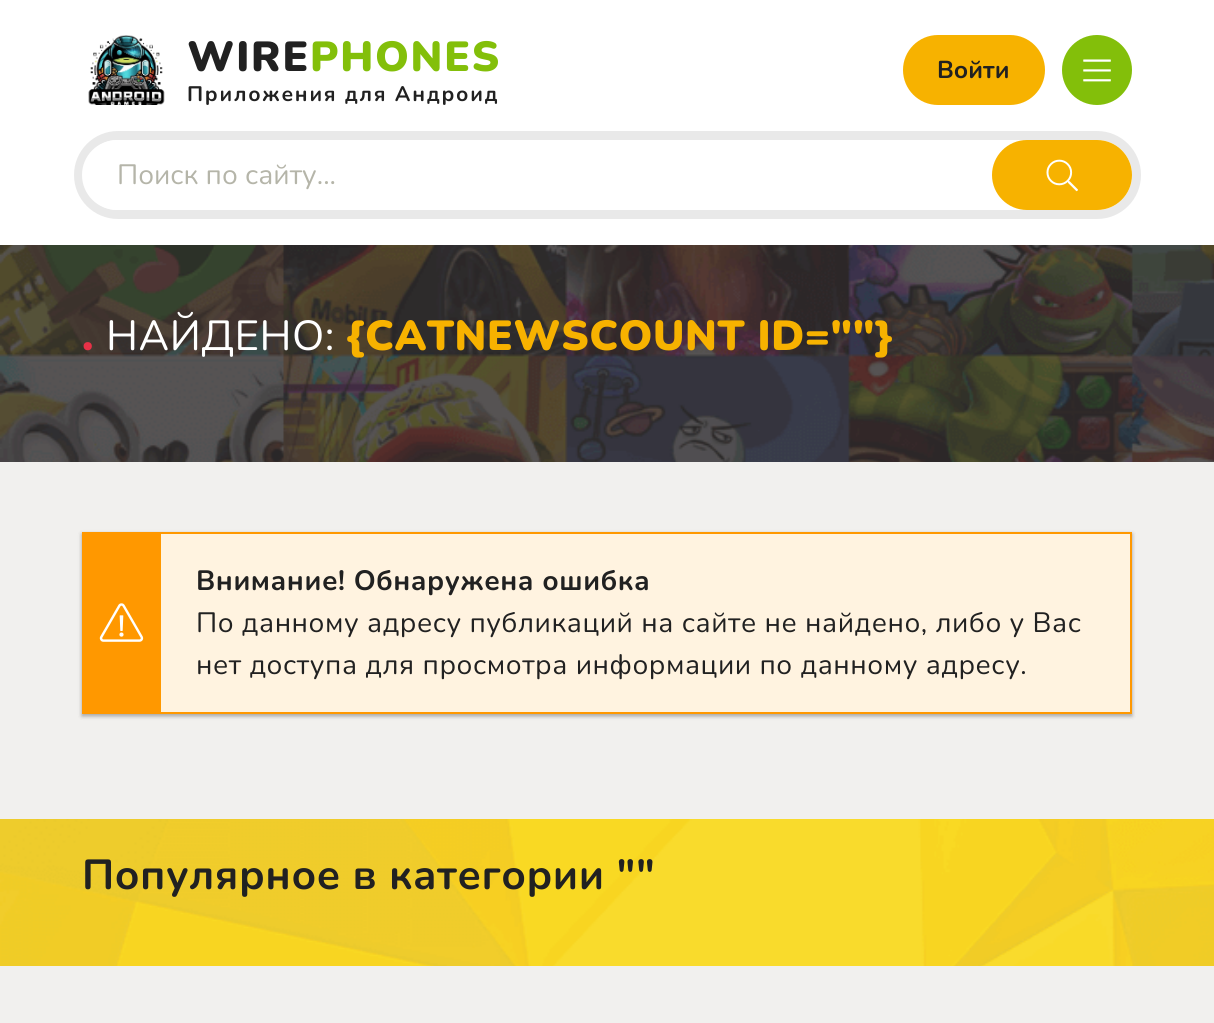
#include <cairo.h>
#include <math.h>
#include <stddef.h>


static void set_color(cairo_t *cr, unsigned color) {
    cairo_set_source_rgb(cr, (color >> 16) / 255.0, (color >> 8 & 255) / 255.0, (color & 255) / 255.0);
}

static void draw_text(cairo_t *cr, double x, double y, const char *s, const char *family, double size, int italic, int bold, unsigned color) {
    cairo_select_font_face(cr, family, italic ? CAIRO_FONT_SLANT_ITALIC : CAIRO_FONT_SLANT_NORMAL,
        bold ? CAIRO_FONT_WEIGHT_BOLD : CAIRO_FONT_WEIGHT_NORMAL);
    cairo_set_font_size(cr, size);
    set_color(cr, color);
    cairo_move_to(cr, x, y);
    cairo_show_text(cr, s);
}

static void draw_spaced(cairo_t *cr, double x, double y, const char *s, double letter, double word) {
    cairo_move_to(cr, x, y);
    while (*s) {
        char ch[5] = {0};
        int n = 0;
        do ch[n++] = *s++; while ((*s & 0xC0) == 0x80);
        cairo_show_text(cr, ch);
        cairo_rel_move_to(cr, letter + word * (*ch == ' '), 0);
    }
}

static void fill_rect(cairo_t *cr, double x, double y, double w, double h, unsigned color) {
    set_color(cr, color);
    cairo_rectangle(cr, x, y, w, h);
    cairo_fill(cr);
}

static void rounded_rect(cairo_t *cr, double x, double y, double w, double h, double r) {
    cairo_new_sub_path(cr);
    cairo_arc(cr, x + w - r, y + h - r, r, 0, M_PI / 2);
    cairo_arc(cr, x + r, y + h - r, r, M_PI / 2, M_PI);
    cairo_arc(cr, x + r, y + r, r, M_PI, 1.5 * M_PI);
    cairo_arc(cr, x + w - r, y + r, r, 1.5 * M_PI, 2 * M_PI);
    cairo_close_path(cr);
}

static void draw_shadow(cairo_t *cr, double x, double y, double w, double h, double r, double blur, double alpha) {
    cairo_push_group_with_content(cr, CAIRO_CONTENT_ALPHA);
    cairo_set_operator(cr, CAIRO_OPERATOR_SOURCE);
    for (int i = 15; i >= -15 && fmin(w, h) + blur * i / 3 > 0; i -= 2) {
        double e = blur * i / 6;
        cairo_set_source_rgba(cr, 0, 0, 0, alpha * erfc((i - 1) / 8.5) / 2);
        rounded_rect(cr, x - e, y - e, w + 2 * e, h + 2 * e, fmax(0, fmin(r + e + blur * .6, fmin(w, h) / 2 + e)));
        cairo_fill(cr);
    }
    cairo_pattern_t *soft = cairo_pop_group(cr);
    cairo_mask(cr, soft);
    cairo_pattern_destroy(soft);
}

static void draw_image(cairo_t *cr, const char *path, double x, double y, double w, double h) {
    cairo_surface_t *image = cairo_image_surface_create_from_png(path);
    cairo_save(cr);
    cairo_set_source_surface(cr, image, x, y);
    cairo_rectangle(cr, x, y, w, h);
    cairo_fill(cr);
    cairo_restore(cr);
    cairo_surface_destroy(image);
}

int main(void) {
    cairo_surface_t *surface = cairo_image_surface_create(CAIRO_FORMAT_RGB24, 1214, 1023);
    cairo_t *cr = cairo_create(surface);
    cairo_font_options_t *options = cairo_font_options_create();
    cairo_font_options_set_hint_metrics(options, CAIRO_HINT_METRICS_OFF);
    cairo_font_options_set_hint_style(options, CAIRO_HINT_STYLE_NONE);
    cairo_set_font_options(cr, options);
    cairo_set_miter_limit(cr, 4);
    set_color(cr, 0xF1F0EE);
    cairo_paint(cr);
    fill_rect(cr, 0, 0, 1214, 245, 0xFFFFFF);
    draw_image(cr, "assets/img1.png", 88, 35, 77, 70);
    cairo_select_font_face(cr, "Nunito Black", CAIRO_FONT_SLANT_NORMAL, CAIRO_FONT_WEIGHT_NORMAL);
    cairo_set_font_size(cr, 42);
    set_color(cr, 0x212121);
    draw_spaced(cr, 187, 71, "WIRE", 1.75, 0);
    set_color(cr, 0x83BF0A);
    draw_spaced(cr, 310, 71, "PHONES", 1.75, 0);
    cairo_select_font_face(cr, "Nunito", CAIRO_FONT_SLANT_NORMAL, CAIRO_FONT_WEIGHT_BOLD);
    cairo_set_font_size(cr, 21);
    set_color(cr, 0x212121);
    draw_spaced(cr, 187, 101, "Приложения для Андроид", 1.75, 0);
    set_color(cr, 0xF7B200);
    rounded_rect(cr, 903, 35, 142, 70, 35);
    cairo_fill(cr);
    draw_text(cr, 937, 78, "Войти", "Nunito", 24.5, 0, 1, 0x212121);
    set_color(cr, 0x83BF0A);
    cairo_new_path(cr);
    cairo_arc(cr, 1097, 70, 35, 0, 2 * M_PI);
    cairo_fill(cr);
    draw_image(cr, "assets/img2.png", 1083, 59, 28, 23);
    rounded_rect(cr, 78.5, 135.5, 1058, 79, 39.5);
    set_color(cr, 0xE9E9E9);
    cairo_set_line_width(cr, 9);
    cairo_stroke(cr);
    set_color(cr, 0xFFFFFF);
    rounded_rect(cr, 82, 140, 1050, 70, 35);
    cairo_fill(cr);
    draw_text(cr, 117, 184, "Поиск по сайту...", "Nunito", 28, 0, 0, 0xB5B5A9);
    set_color(cr, 0xF7B200);
    rounded_rect(cr, 992, 140, 140, 70, 35);
    cairo_fill(cr);
    draw_image(cr, "assets/img3.png", 1046, 159, 32, 33);
    draw_image(cr, "assets/img4.png", 0, 245, 1214, 217);
    cairo_select_font_face(cr, "Nunito Black", CAIRO_FONT_SLANT_NORMAL, CAIRO_FONT_WEIGHT_NORMAL);
    cairo_set_font_size(cr, 42);
    set_color(cr, 0xE83147);
    draw_spaced(cr, 82, 350, ".", 0.55, 0);
    cairo_select_font_face(cr, "Nunito", CAIRO_FONT_SLANT_NORMAL, CAIRO_FONT_WEIGHT_NORMAL);
    set_color(cr, 0xFFFFFF);
    draw_spaced(cr, 106, 350, "НАЙДЕНО:", 0.55, 0);
    cairo_select_font_face(cr, "Nunito Black", CAIRO_FONT_SLANT_NORMAL, CAIRO_FONT_WEIGHT_NORMAL);
    set_color(cr, 0xF7B200);
    draw_spaced(cr, 346, 350, "{CATNEWSCOUNT ID=\"\"}", 0.55, 0);
    set_color(cr, 0x000000);
    draw_shadow(cr, 82, 534, 1050, 182, 0, 2, 0.24);
    draw_shadow(cr, 82, 534, 1050, 182, 0, 2.5, 0.12);
    fill_rect(cr, 161, 534, 969, 178, 0xFFF3E0);
    cairo_rectangle(cr, 83, 533, 1048, 180);
    set_color(cr, 0xFF9800);
    cairo_set_line_width(cr, 2);
    cairo_stroke(cr);
    fill_rect(cr, 84, 534, 77, 178, 0xFF9800);
    draw_image(cr, "assets/img5.png", 99, 603, 45, 39);
    cairo_select_font_face(cr, "Nunito", CAIRO_FONT_SLANT_NORMAL, CAIRO_FONT_WEIGHT_BOLD);
    cairo_set_font_size(cr, 28);
    set_color(cr, 0x212121);
    draw_spaced(cr, 196, 590, "Внимание! Обнаружена ошибка", 0.55, 0);
    cairo_select_font_face(cr, "Nunito", CAIRO_FONT_SLANT_NORMAL, CAIRO_FONT_WEIGHT_NORMAL);
    draw_spaced(cr, 196, 632, "По данному адресу публикаций на сайте не найдено, либо у Вас", 0.55, 0);
    draw_spaced(cr, 196, 674, "нет доступа для просмотра информации по данному адресу.", 0.55, 0);
    draw_image(cr, "assets/img6.png", 0, 819, 1214, 147);
    cairo_select_font_face(cr, "Nunito", CAIRO_FONT_SLANT_NORMAL, CAIRO_FONT_WEIGHT_BOLD);
    cairo_set_font_size(cr, 42);
    draw_spaced(cr, 82, 889, "Популярное в категории \"\"", 0.55, 0);
    cairo_surface_write_to_png(surface, "output.png");
    cairo_font_options_destroy(options);
    cairo_destroy(cr);
    cairo_surface_destroy(surface);
    return 0;
}
